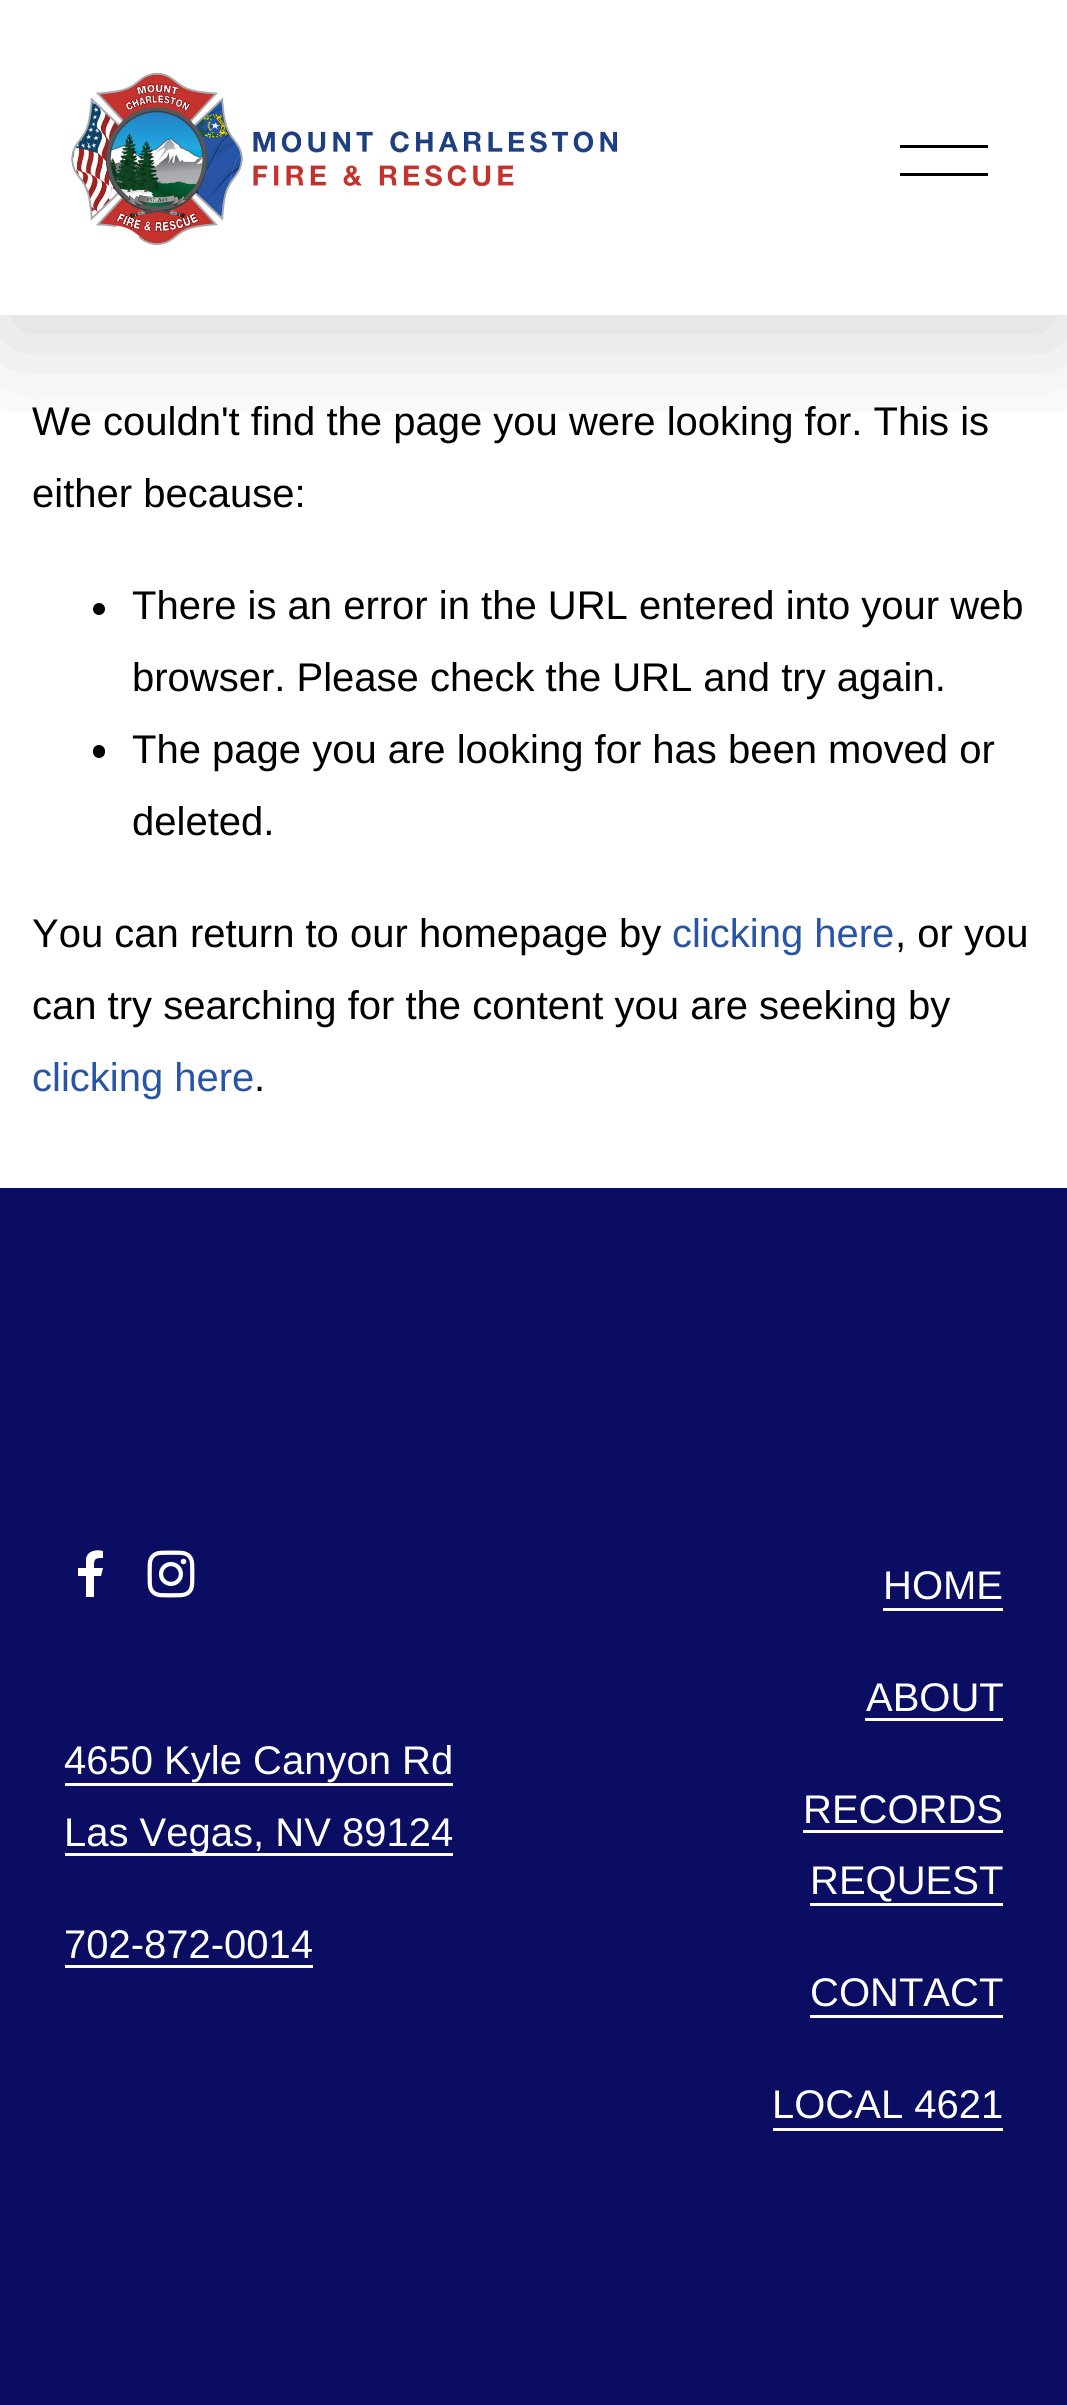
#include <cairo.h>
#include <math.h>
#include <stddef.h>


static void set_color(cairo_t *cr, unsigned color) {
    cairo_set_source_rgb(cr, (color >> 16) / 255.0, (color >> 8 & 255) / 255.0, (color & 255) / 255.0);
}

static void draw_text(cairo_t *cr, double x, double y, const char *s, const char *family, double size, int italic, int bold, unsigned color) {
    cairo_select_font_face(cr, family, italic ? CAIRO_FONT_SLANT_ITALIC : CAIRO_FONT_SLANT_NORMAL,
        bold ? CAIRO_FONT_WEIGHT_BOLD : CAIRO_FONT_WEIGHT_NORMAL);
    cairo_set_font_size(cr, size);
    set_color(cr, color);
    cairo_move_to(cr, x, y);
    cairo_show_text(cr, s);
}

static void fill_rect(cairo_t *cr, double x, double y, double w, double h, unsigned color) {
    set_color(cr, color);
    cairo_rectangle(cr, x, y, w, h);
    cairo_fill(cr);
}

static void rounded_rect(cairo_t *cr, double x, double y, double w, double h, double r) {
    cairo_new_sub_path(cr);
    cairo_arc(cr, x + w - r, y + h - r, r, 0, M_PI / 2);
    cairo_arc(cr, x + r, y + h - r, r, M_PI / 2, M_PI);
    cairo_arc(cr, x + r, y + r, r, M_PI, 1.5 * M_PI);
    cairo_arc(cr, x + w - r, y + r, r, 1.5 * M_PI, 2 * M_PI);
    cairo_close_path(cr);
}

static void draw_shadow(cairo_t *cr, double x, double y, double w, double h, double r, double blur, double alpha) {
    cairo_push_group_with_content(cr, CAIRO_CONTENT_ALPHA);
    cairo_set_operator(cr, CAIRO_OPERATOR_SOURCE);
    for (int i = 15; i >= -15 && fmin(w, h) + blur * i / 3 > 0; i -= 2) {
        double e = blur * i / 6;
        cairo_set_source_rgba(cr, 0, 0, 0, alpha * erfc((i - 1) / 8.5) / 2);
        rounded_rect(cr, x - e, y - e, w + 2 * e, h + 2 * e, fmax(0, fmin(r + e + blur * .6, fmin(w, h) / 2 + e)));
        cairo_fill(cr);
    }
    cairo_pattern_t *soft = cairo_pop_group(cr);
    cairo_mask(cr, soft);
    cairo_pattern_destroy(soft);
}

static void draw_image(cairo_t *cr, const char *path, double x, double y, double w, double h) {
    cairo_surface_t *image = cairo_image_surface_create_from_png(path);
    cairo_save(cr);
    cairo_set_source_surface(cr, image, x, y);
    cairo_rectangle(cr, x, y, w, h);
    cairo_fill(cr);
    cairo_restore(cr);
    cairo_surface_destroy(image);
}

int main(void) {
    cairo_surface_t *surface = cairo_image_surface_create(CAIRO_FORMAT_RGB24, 1067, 2405);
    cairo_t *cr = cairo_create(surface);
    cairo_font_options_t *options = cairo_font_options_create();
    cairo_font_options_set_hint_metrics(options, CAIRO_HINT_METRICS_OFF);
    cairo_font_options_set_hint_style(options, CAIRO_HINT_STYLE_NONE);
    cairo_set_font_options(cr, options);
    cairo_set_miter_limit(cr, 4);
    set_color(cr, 0xFFFFFF);
    cairo_paint(cr);
    cairo_save(cr);
    cairo_rectangle(cr, 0, 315, 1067, 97);
    cairo_clip(cr);
    set_color(cr, 0x000000);
    draw_shadow(cr, 0, 30, 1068, 315, 0, 60, 0.15);
    cairo_restore(cr);
    draw_image(cr, "assets/img1.png", 71, 72, 547, 174);
    fill_rect(cr, 900, 145, 88, 3, 0x000000);
    fill_rect(cr, 900, 173, 88, 3, 0x000000);
    draw_text(cr, 32, 435, "We couldn't find the page you were looking for. This is", "Liberation Sans", 40, 0, 0, 0x000000);
    draw_text(cr, 32, 507, "either because:", "Liberation Sans", 40, 0, 0, 0x000000);
    cairo_new_path(cr);
    cairo_arc(cr, 99, 609, 6, 0, 2 * M_PI);
    cairo_fill(cr);
    draw_text(cr, 132, 619, "There is an error in the URL entered into your web", "Liberation Sans", 40, 0, 0, 0x000000);
    draw_text(cr, 132, 691, "browser. Please check the URL and try again.", "Liberation Sans", 40, 0, 0, 0x000000);
    rounded_rect(cr, 93, 745, 12, 13, 6);
    cairo_fill(cr);
    draw_text(cr, 132, 763, "The page you are looking for has been moved or", "Liberation Sans", 40, 0, 0, 0x000000);
    draw_text(cr, 132, 835, "deleted.", "Liberation Sans", 40, 0, 0, 0x000000);
    draw_text(cr, 32, 947, "You can return to our homepage by", "Liberation Sans", 40, 0, 0, 0x000000);
    draw_text(cr, 672, 947, "clicking here", "Liberation Sans", 40, 0, 0, 0x2754A5);
    draw_text(cr, 895, 947, ", or you", "Liberation Sans", 40, 0, 0, 0x000000);
    draw_text(cr, 32, 1019, "can try searching for the content you are seeking by", "Liberation Sans", 40, 0, 0, 0x000000);
    draw_text(cr, 32, 1091, "clicking here", "Liberation Sans", 40, 0, 0, 0x2754A5);
    draw_text(cr, 254, 1091, ".", "Liberation Sans", 40, 0, 0, 0x000000);
    fill_rect(cr, 0, 1188, 1067, 1217, 0x0B0D63);
    set_color(cr, 0xFFFFFF);
    cairo_new_path(cr);
    cairo_move_to(cr, 94, 1597);
    cairo_line_to(cr, 94, 1576);
    cairo_line_to(cr, 101, 1576);
    cairo_line_to(cr, 103, 1568);
    cairo_line_to(cr, 94, 1568);
    cairo_curve_to(cr, 94, 1559, 94, 1558, 103, 1558);
    cairo_line_to(cr, 103, 1551);
    cairo_curve_to(cr, 96, 1549, 87, 1551, 86, 1559);
    cairo_line_to(cr, 86, 1568);
    cairo_line_to(cr, 78, 1568);
    cairo_line_to(cr, 78, 1576);
    cairo_line_to(cr, 86, 1576);
    cairo_line_to(cr, 86, 1597);
    cairo_close_path(cr);
    cairo_fill(cr);
    draw_image(cr, "assets/img2.png", 147, 1550, 48, 48);
    draw_text(cr, 883, 1599, "HOME", "Liberation Sans", 40, 0, 0, 0xFFFFFF);
    fill_rect(cr, 883, 1608, 120, 3, 0xFFFFFF);
    draw_text(cr, 866, 1711, "ABOUT", "Liberation Sans", 40, 0, 0, 0xFFFFFF);
    fill_rect(cr, 865, 1718, 138, 3, 0xFFFFFF);
    draw_text(cr, 803, 1823, "RECORDS", "Liberation Sans", 40, 0, 0, 0xFFFFFF);
    fill_rect(cr, 803, 1830, 200, 3, 0xFFFFFF);
    draw_text(cr, 810, 1894, "REQUEST", "Liberation Sans", 40, 0, 0, 0xFFFFFF);
    fill_rect(cr, 810, 1903, 193, 3, 0xFFFFFF);
    draw_text(cr, 810, 2006, "CONTACT", "Liberation Sans", 40, 0, 0, 0xFFFFFF);
    fill_rect(cr, 810, 2015, 193, 3, 0xFFFFFF);
    draw_text(cr, 772, 2118, "LOCAL 4621", "Liberation Sans", 40, 0, 0, 0xFFFFFF);
    fill_rect(cr, 773, 2128, 230, 3, 0xFFFFFF);
    draw_text(cr, 64, 1774, "4650 Kyle Canyon Rd", "Liberation Sans", 40, 0, 0, 0xFFFFFF);
    fill_rect(cr, 65, 1783, 388, 3, 0xFFFFFF);
    fill_rect(cr, 65, 1853, 388, 3, 0xFFFFFF);
    draw_text(cr, 64, 1846, "Las Vegas, NV 89124", "Liberation Sans", 40, 0, 0, 0xFFFFFF);
    draw_text(cr, 64, 1958, "702-872-0014", "Liberation Sans", 40, 0, 0, 0xFFFFFF);
    fill_rect(cr, 65, 1965, 248, 3, 0xFFFFFF);
    cairo_surface_write_to_png(surface, "output.png");
    cairo_font_options_destroy(options);
    cairo_destroy(cr);
    cairo_surface_destroy(surface);
    return 0;
}
